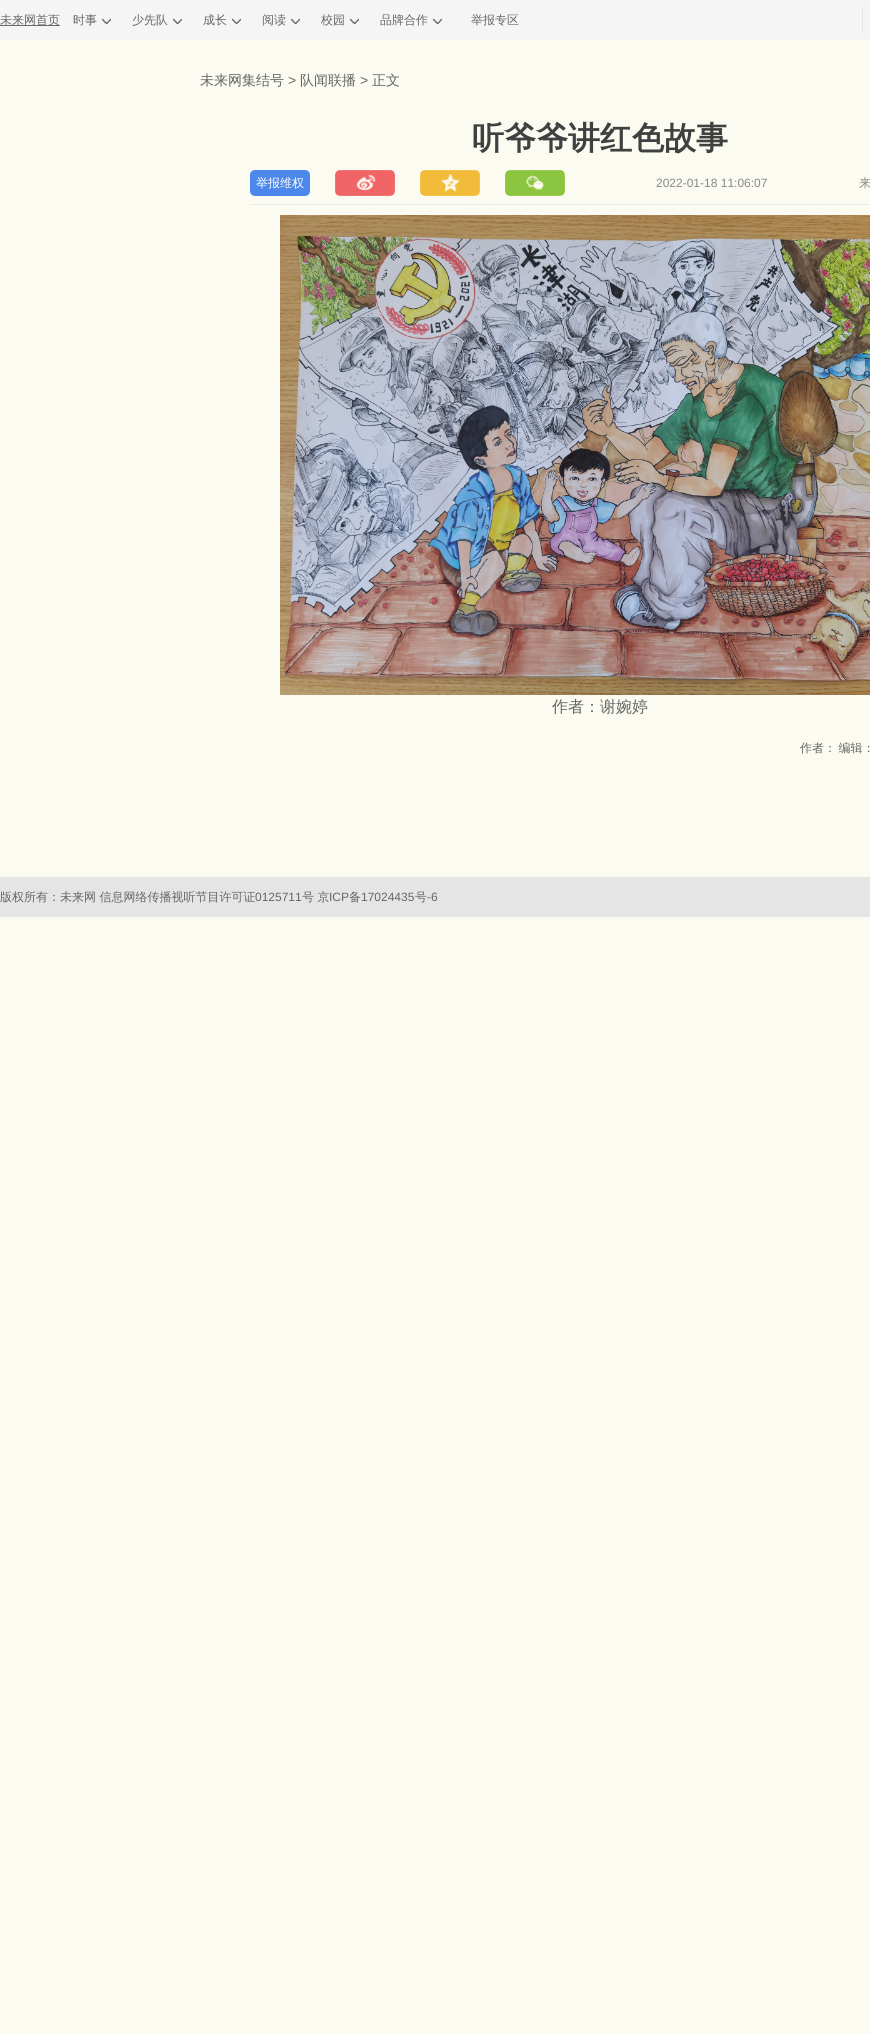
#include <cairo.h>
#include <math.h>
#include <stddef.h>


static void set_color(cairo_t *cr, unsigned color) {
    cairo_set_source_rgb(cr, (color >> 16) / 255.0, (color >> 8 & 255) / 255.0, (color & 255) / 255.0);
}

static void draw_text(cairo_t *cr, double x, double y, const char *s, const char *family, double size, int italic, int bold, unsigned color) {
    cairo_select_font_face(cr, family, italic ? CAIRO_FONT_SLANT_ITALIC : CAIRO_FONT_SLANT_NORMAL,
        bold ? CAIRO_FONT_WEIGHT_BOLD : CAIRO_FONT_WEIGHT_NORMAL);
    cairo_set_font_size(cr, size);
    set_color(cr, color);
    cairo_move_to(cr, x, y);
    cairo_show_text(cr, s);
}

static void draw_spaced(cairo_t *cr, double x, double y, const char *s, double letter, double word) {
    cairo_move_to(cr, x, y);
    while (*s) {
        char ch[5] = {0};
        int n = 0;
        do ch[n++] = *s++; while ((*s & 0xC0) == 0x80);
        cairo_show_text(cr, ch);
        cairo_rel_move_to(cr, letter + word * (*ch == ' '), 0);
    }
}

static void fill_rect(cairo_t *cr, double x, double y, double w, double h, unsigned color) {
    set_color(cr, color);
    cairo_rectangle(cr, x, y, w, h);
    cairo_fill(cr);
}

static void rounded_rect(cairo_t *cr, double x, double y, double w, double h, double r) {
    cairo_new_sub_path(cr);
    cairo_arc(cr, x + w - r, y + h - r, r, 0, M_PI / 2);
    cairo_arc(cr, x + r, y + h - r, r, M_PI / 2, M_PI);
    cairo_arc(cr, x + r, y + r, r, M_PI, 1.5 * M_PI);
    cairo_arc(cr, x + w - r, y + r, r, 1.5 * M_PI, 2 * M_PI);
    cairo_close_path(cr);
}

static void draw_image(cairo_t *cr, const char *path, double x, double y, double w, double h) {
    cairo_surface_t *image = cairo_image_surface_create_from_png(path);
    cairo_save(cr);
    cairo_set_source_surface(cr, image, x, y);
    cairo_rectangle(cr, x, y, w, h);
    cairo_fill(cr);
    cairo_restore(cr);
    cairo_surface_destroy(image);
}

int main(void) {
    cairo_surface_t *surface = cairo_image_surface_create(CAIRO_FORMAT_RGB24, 870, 2034);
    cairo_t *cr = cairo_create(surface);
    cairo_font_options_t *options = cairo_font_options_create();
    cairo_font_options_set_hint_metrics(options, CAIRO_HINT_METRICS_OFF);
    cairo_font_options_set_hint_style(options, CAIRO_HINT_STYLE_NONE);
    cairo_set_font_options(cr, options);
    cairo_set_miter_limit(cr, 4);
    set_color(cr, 0xFCFBF1);
    cairo_paint(cr);
    fill_rect(cr, 0, 0, 870, 40, 0xF5F5F5);
    fill_rect(cr, 0, 25, 60, 1, 0x6B6A6B);
    draw_text(cr, 0, 24, "未来网首页", "WenQuanYi Zen Hei Medium", 12, 0, 0, 0x666666);
    draw_text(cr, 73, 24, "时事", "WenQuanYi Zen Hei Medium", 12, 0, 0, 0x666666);
    draw_image(cr, "assets/img1.png", 102, 18, 9, 6);
    draw_text(cr, 132, 24, "少先队", "WenQuanYi Zen Hei Medium", 12, 0, 0, 0x666666);
    draw_image(cr, "assets/img1.png", 173, 18, 9, 6);
    draw_text(cr, 203, 24, "成长", "WenQuanYi Zen Hei Medium", 12, 0, 0, 0x666666);
    draw_image(cr, "assets/img1.png", 232, 18, 9, 6);
    draw_text(cr, 262, 24, "阅读", "WenQuanYi Zen Hei Medium", 12, 0, 0, 0x666666);
    draw_image(cr, "assets/img1.png", 291, 18, 9, 6);
    draw_text(cr, 321, 24, "校园", "WenQuanYi Zen Hei Medium", 12, 0, 0, 0x666666);
    draw_image(cr, "assets/img1.png", 350, 18, 9, 6);
    draw_text(cr, 380, 24, "品牌合作", "WenQuanYi Zen Hei Medium", 12, 0, 0, 0x666666);
    draw_image(cr, "assets/img1.png", 433, 18, 9, 6);
    draw_text(cr, 471, 24, "举报专区", "WenQuanYi Zen Hei Medium", 12, 0, 0, 0x666666);
    fill_rect(cr, 862, 8, 1, 24, 0xE6E6E6);
    draw_text(cr, 200, 85, "未来网集结号", "WenQuanYi Zen Hei Medium", 14, 0, 0, 0x666666);
    draw_text(cr, 288, 85, ">", "Liberation Sans", 14, 0, 0, 0x666666);
    draw_text(cr, 300, 85, "队闻联播", "WenQuanYi Zen Hei Medium", 14, 0, 0, 0x666666);
    draw_text(cr, 360, 85, ">", "Liberation Sans", 14, 0, 0, 0x666666);
    draw_text(cr, 372, 85, "正文", "WenQuanYi Zen Hei Medium", 14, 0, 0, 0x666666);
    fill_rect(cr, 250, 204, 620, 1, 0xEBEBEB);
    draw_text(cr, 472, 149, "听爷爷讲红色故事", "WenQuanYi Zen Hei", 32, 0, 1, 0x404040);
    set_color(cr, 0x4C87EC);
    rounded_rect(cr, 250, 170, 60, 26, 5);
    cairo_fill(cr);
    draw_text(cr, 256, 187, "举报维权", "WenQuanYi Zen Hei Medium", 12, 0, 0, 0xFFFFFF);
    draw_image(cr, "assets/img2.png", 335, 170, 60, 26);
    draw_image(cr, "assets/img3.png", 420, 170, 60, 26);
    draw_image(cr, "assets/img4.png", 505, 170, 60, 26);
    draw_text(cr, 656, 187, "2022-01-18 11:06:07", "Liberation Sans", 12, 0, 0, 0x888888);
    draw_text(cr, 859, 187, "来", "WenQuanYi Zen Hei Medium", 12, 0, 0, 0x888888);
    draw_image(cr, "assets/img5.png", 280, 215, 590, 480);
    draw_text(cr, 552, 712, "作者：谢婉婷", "WenQuanYi Zen Hei Medium", 16, 0, 0, 0x666666);
    cairo_set_font_size(cr, 12);
    draw_spaced(cr, 800, 752, "作者： 编辑：", 0, -1);
    fill_rect(cr, 0, 877, 870, 40, 0xE5E5E5);
    draw_text(cr, 0, 901, "版权所有：未来网 信息网络传播视听节目许可证", "WenQuanYi Zen Hei Medium", 12, 0, 0, 0x666666);
    draw_text(cr, 255, 901, "0125711", "Liberation Sans", 12, 0, 0, 0x666666);
    draw_text(cr, 302, 901, "号 京", "WenQuanYi Zen Hei Medium", 12, 0, 0, 0x666666);
    draw_text(cr, 329, 901, "ICP", "Liberation Sans", 12, 0, 0, 0x666666);
    draw_text(cr, 349, 901, "备", "WenQuanYi Zen Hei Medium", 12, 0, 0, 0x666666);
    draw_text(cr, 361, 901, "17024435", "Liberation Sans", 12, 0, 0, 0x666666);
    draw_text(cr, 415, 901, "号", "WenQuanYi Zen Hei Medium", 12, 0, 0, 0x666666);
    draw_text(cr, 427, 901, "-6", "Liberation Sans", 12, 0, 0, 0x666666);
    cairo_surface_write_to_png(surface, "output.png");
    cairo_font_options_destroy(options);
    cairo_destroy(cr);
    cairo_surface_destroy(surface);
    return 0;
}
